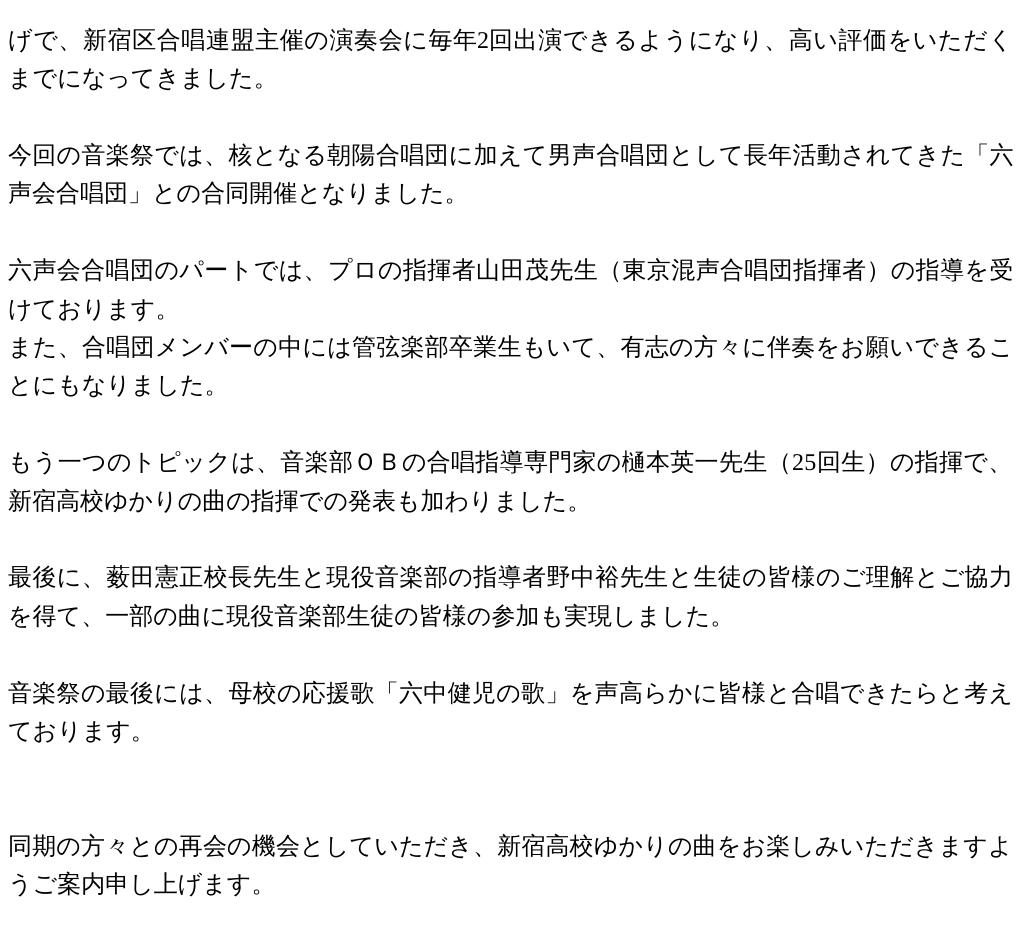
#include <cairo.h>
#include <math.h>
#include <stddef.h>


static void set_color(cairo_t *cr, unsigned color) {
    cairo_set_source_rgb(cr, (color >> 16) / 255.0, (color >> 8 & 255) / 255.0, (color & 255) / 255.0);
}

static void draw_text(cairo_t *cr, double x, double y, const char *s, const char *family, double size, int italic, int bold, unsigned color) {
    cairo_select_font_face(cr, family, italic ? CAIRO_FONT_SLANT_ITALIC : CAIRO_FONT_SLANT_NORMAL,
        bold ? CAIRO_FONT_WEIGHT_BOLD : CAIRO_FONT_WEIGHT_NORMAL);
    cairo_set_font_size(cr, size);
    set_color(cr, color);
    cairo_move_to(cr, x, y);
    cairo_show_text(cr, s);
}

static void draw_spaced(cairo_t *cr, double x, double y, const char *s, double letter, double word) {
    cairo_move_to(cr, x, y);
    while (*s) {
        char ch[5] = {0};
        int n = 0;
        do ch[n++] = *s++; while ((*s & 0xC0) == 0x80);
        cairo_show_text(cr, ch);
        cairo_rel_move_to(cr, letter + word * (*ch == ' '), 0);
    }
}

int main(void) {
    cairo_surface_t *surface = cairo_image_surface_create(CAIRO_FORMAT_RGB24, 1019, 949);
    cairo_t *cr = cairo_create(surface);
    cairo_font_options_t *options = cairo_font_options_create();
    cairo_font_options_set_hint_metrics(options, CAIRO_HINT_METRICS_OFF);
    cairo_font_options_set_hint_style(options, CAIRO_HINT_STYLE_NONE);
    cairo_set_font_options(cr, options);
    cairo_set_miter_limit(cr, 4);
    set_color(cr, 0xFFFFFF);
    cairo_paint(cr);
    cairo_select_font_face(cr, "WenQuanYi Zen Hei Medium", CAIRO_FONT_SLANT_NORMAL, CAIRO_FONT_WEIGHT_NORMAL);
    cairo_set_font_size(cr, 24);
    set_color(cr, 0x000000);
    draw_spaced(cr, 8, 48, "げで、新宿区合唱連盟主催の演奏会に毎年", 0.6, 0);
    cairo_select_font_face(cr, "Liberation Serif", CAIRO_FONT_SLANT_NORMAL, CAIRO_FONT_WEIGHT_NORMAL);
    draw_spaced(cr, 477, 48, "2", 0.6, 0);
    cairo_select_font_face(cr, "WenQuanYi Zen Hei Medium", CAIRO_FONT_SLANT_NORMAL, CAIRO_FONT_WEIGHT_NORMAL);
    draw_spaced(cr, 489, 48, "回出演できるようになり、高い評価をいただく", 0.6, 0);
    draw_text(cr, 8, 86, "までになってきました。", "WenQuanYi Zen Hei Medium", 24, 0, 0, 0x000000);
    draw_spaced(cr, 8, 163, "今回の音楽祭では、核となる朝陽合唱団に加えて男声合唱団として長年活動されてきた「六", 0.3, 0);
    draw_text(cr, 8, 201, "声会合唱団」との合同開催となりました。", "WenQuanYi Zen Hei Medium", 24, 0, 0, 0x000000);
    draw_spaced(cr, 8, 278, "六声会合唱団のパートでは、プロの指揮者山田茂先生（東京混声合唱団指揮者）の指導を受", 0.4, 0);
    draw_text(cr, 8, 317, "けております。", "WenQuanYi Zen Hei Medium", 24, 0, 0, 0x000000);
    draw_spaced(cr, 8, 355, "また、合唱団メンバーの中には管弦楽部卒業生もいて、有志の方々に伴奏をお願いできるこ", 0.25, 0);
    draw_text(cr, 8, 393, "とにもなりました。", "WenQuanYi Zen Hei Medium", 24, 0, 0, 0x000000);
    draw_spaced(cr, 8, 470, "もう一つのトピックは、音楽部ＯＢの合唱指導専門家の樋本英一先生（", 0.3, 0);
    cairo_select_font_face(cr, "Liberation Serif", CAIRO_FONT_SLANT_NORMAL, CAIRO_FONT_WEIGHT_NORMAL);
    draw_spaced(cr, 792, 470, "25", 0.3, 0);
    cairo_select_font_face(cr, "WenQuanYi Zen Hei Medium", CAIRO_FONT_SLANT_NORMAL, CAIRO_FONT_WEIGHT_NORMAL);
    draw_spaced(cr, 817, 470, "回生）の指揮で、", 0.3, 0);
    draw_text(cr, 8, 509, "新宿高校ゆかりの曲の指揮での発表も加わりました。", "WenQuanYi Zen Hei Medium", 24, 0, 0, 0x000000);
    draw_spaced(cr, 8, 585, "最後に、薮田憲正校長先生と現役音楽部の指導者野中裕先生と生徒の皆様のご理解とご協力", 0.4, 0);
    draw_text(cr, 8, 624, "を得て、一部の曲に現役音楽部生徒の皆様の参加も実現しました。", "WenQuanYi Zen Hei Medium", 24, 0, 0, 0x000000);
    draw_spaced(cr, 8, 701, "音楽祭の最後には、母校の応援歌「六中健児の歌」を声高らかに皆様と合唱できたらと考え", 0.3, 0);
    draw_text(cr, 8, 739, "ております。", "WenQuanYi Zen Hei Medium", 24, 0, 0, 0x000000);
    draw_spaced(cr, 8, 854, "同期の方々との再会の機会としていただき、新宿高校ゆかりの曲をお楽しみいただきますよ", 0.15, 0);
    draw_text(cr, 8, 892, "うご案内申し上げます。", "WenQuanYi Zen Hei Medium", 24, 0, 0, 0x000000);
    cairo_surface_write_to_png(surface, "output.png");
    cairo_font_options_destroy(options);
    cairo_destroy(cr);
    cairo_surface_destroy(surface);
    return 0;
}
